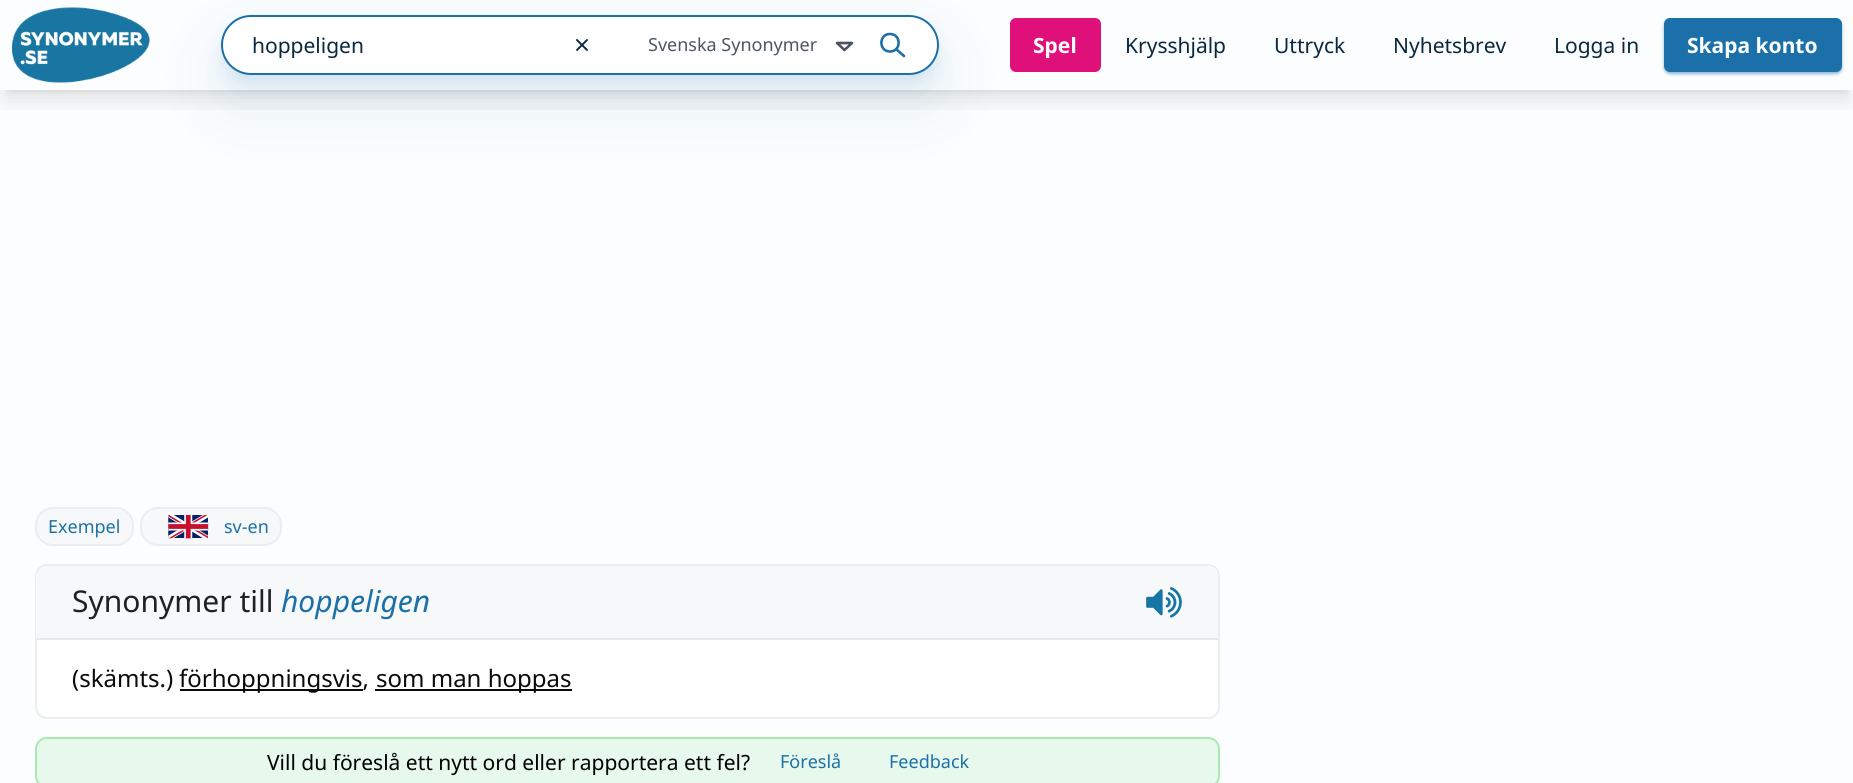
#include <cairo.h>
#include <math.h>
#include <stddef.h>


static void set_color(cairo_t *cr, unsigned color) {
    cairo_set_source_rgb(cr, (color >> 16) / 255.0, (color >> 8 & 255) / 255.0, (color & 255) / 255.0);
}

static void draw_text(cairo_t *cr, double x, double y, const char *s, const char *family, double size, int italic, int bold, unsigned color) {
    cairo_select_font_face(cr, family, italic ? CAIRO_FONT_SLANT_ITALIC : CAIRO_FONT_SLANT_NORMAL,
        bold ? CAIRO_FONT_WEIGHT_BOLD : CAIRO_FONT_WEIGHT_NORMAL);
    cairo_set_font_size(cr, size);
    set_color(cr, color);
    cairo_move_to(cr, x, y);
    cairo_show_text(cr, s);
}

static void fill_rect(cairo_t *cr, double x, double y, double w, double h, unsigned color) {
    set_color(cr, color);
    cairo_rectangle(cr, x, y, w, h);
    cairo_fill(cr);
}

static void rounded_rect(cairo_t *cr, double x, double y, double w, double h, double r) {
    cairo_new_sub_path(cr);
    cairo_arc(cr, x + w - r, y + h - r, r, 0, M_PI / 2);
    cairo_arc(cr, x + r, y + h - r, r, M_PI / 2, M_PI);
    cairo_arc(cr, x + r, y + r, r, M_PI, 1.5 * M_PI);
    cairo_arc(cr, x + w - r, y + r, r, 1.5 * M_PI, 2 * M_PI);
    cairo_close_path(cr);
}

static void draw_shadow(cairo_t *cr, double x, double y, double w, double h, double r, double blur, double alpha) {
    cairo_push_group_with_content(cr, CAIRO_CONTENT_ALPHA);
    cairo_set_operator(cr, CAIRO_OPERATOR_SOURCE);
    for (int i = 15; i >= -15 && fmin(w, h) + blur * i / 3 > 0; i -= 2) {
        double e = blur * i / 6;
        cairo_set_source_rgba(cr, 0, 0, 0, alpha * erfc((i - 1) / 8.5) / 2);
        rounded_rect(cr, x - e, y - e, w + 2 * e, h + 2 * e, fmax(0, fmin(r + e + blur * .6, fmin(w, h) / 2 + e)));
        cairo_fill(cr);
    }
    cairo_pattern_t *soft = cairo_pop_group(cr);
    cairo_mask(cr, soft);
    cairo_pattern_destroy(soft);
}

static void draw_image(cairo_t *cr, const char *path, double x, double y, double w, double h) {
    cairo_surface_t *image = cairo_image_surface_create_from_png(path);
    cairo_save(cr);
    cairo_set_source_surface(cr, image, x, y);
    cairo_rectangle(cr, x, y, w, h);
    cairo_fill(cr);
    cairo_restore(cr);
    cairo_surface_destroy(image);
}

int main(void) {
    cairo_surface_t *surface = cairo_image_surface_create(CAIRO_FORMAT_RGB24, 1853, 783);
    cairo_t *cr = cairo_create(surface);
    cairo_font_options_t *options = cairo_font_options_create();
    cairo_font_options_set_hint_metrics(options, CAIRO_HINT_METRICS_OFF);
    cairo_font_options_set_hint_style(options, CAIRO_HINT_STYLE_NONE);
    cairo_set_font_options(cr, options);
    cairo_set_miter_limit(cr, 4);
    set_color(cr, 0xFBFDFE);
    cairo_paint(cr);
    cairo_save(cr);
    cairo_rectangle(cr, 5, 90, 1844, 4);
    cairo_clip(cr);
    set_color(cr, 0x000000);
    draw_shadow(cr, 6, 12, 1842, 78, 0, 4.5, 0.1);
    cairo_restore(cr);
    cairo_save(cr);
    cairo_rectangle(cr, 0, 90, 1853, 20);
    cairo_clip(cr);
    set_color(cr, 0x000000);
    draw_shadow(cr, 5, 20, 1845, 81, 0, 11, 0.1);
    cairo_restore(cr);
    draw_image(cr, "assets/img1.png", 12, 7, 138, 76);
    set_color(cr, 0x1B70A9);
    draw_shadow(cr, 221, 23, 718, 60, 30, 7.5, 0.1);
    set_color(cr, 0xE0107B);
    rounded_rect(cr, 1010, 18, 91, 54, 6);
    cairo_fill(cr);
    set_color(cr, 0x1B70A9);
    draw_shadow(cr, 221, 45, 718, 60, 30, 30, 0.1);
    set_color(cr, 0xFFFFFF);
    rounded_rect(cr, 222, 16, 716, 58, 29);
    cairo_fill_preserve(cr);
    set_color(cr, 0x1B70A9);
    cairo_stroke(cr);
    draw_text(cr, 252, 53, "hoppeligen", "Noto Sans", 21, 0, 0, 0x0A283D);
    cairo_new_path(cr);
    cairo_move_to(cr, 587, 40);
    cairo_line_to(cr, 577, 50);
    cairo_move_to(cr, 577, 40);
    cairo_line_to(cr, 587, 50);
    cairo_set_line_width(cr, 1.9);
    cairo_set_line_cap(cr, CAIRO_LINE_CAP_ROUND);
    cairo_set_line_join(cr, CAIRO_LINE_JOIN_ROUND);
    cairo_stroke(cr);
    draw_text(cr, 648, 51, "Svenska Synonymer", "Noto Sans", 18, 0, 0, 0x4B5563);
    cairo_new_path(cr);
    cairo_move_to(cr, 837, 43);
    cairo_line_to(cr, 844.5, 50);
    cairo_line_to(cr, 852, 43);
    cairo_close_path(cr);
    cairo_set_line_width(cr, 2.6);
    cairo_stroke(cr);
    cairo_new_path(cr);
    cairo_move_to(cr, 890, 51.5);
    cairo_curve_to(cr, 901.5, 51.5, 901.5, 34, 890, 34);
    cairo_curve_to(cr, 878.5, 34, 878.5, 51.5, 890, 51.5);
    cairo_move_to(cr, 904, 56);
    cairo_line_to(cr, 896, 49);
    set_color(cr, 0x1B70A9);
    cairo_stroke(cr);
    draw_text(cr, 1033, 53, "Spel", "Noto Sans", 21, 0, 1, 0xFBFDFE);
    draw_text(cr, 1125, 53, "Krysshjälp", "Noto Sans", 21, 0, 0, 0x0A283D);
    draw_text(cr, 1274, 53, "Uttryck", "Noto Sans", 21, 0, 0, 0x0A283D);
    draw_text(cr, 1393, 53, "Nyhetsbrev", "Noto Sans", 21, 0, 0, 0x0A283D);
    draw_text(cr, 1554, 53, "Logga in", "Noto Sans", 21, 0, 0, 0x0A283D);
    set_color(cr, 0x1B70A9);
    draw_shadow(cr, 1664, 20, 178, 54, 6, 1.5, 0.5);
    set_color(cr, 0x1B70A9);
    rounded_rect(cr, 1664, 18, 178, 54, 6);
    cairo_fill(cr);
    draw_text(cr, 1687, 53, "Skapa konto", "Noto Sans", 21, 0, 1, 0xFBFDFE);
    set_color(cr, 0xF6F8F9);
    rounded_rect(cr, 36, 508, 97, 37, 17);
    cairo_fill_preserve(cr);
    set_color(cr, 0xECEEEE);
    cairo_set_line_width(cr, 2);
    cairo_set_line_cap(cr, CAIRO_LINE_CAP_BUTT);
    cairo_set_line_join(cr, CAIRO_LINE_JOIN_MITER);
    cairo_stroke(cr);
    draw_text(cr, 48, 533, "Exempel", "Noto Sans", 18, 0, 0, 0x1B70A9);
    set_color(cr, 0xF6F8F9);
    rounded_rect(cr, 141, 508, 140, 37, 17);
    cairo_fill_preserve(cr);
    set_color(cr, 0xECEEEE);
    cairo_stroke(cr);
    draw_image(cr, "assets/img2.png", 168, 515, 41, 24);
    draw_text(cr, 224, 533, "sv-en", "Noto Sans", 18, 0, 0, 0x1B70A9);
    set_color(cr, 0xFFFFFF);
    rounded_rect(cr, 36, 565, 1183, 153, 11);
    cairo_fill_preserve(cr);
    set_color(cr, 0xECEEEE);
    cairo_stroke(cr);
    set_color(cr, 0xF6F8F9);
    cairo_new_path(cr);
    cairo_move_to(cr, 47, 566);
    cairo_line_to(cr, 1207, 566);
    cairo_curve_to(cr, 1213, 566, 1218, 571, 1218, 577);
    cairo_line_to(cr, 1218, 638);
    cairo_line_to(cr, 36, 638);
    cairo_line_to(cr, 36, 577);
    cairo_curve_to(cr, 36, 571, 41, 566, 47, 566);
    cairo_close_path(cr);
    cairo_fill(cr);
    fill_rect(cr, 36, 638, 1182, 2, 0xE7E8E9);
    draw_text(cr, 72, 612, "Synonymer till", "Noto Sans", 30, 0, 0, 0x1F2122);
    draw_text(cr, 281, 612, "hoppeligen", "Noto Sans", 30, 1, 0, 0x1B70A9);
    draw_image(cr, "assets/img3.png", 1146, 587, 36, 31);
    draw_text(cr, 72, 687, "(skämts.)", "Noto Sans", 24, 0, 0, 0x0A0A0A);
    fill_rect(cr, 180, 689, 183, 2, 0x0A0A0A);
    draw_text(cr, 179, 687, "förhoppningsvis,", "Noto Sans", 24, 0, 0, 0x0A0A0A);
    fill_rect(cr, 375, 689, 197, 2, 0x0A0A0A);
    draw_text(cr, 376, 687, "som man hoppas", "Noto Sans", 24, 0, 0, 0x0A0A0A);
    set_color(cr, 0xE7F8EC);
    rounded_rect(cr, 35, 737, 1185, 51, 12);
    cairo_fill(cr);
    rounded_rect(cr, 36, 738, 1183, 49, 11);
    cairo_set_source_rgba(cr, 0.004, 0.769, 0.094, 0.27);
    cairo_stroke(cr);
    draw_text(cr, 267, 770, "Vill du föreslå ett nytt ord eller rapportera ett fel?", "Noto Sans", 21, 0, 0, 0x000000);
    draw_text(cr, 780, 768, "Föreslå", "Noto Sans", 18, 0, 0, 0x1B70A9);
    draw_text(cr, 889, 768, "Feedback", "Noto Sans", 18, 0, 0, 0x1B70A9);
    cairo_surface_write_to_png(surface, "output.png");
    cairo_font_options_destroy(options);
    cairo_destroy(cr);
    cairo_surface_destroy(surface);
    return 0;
}
